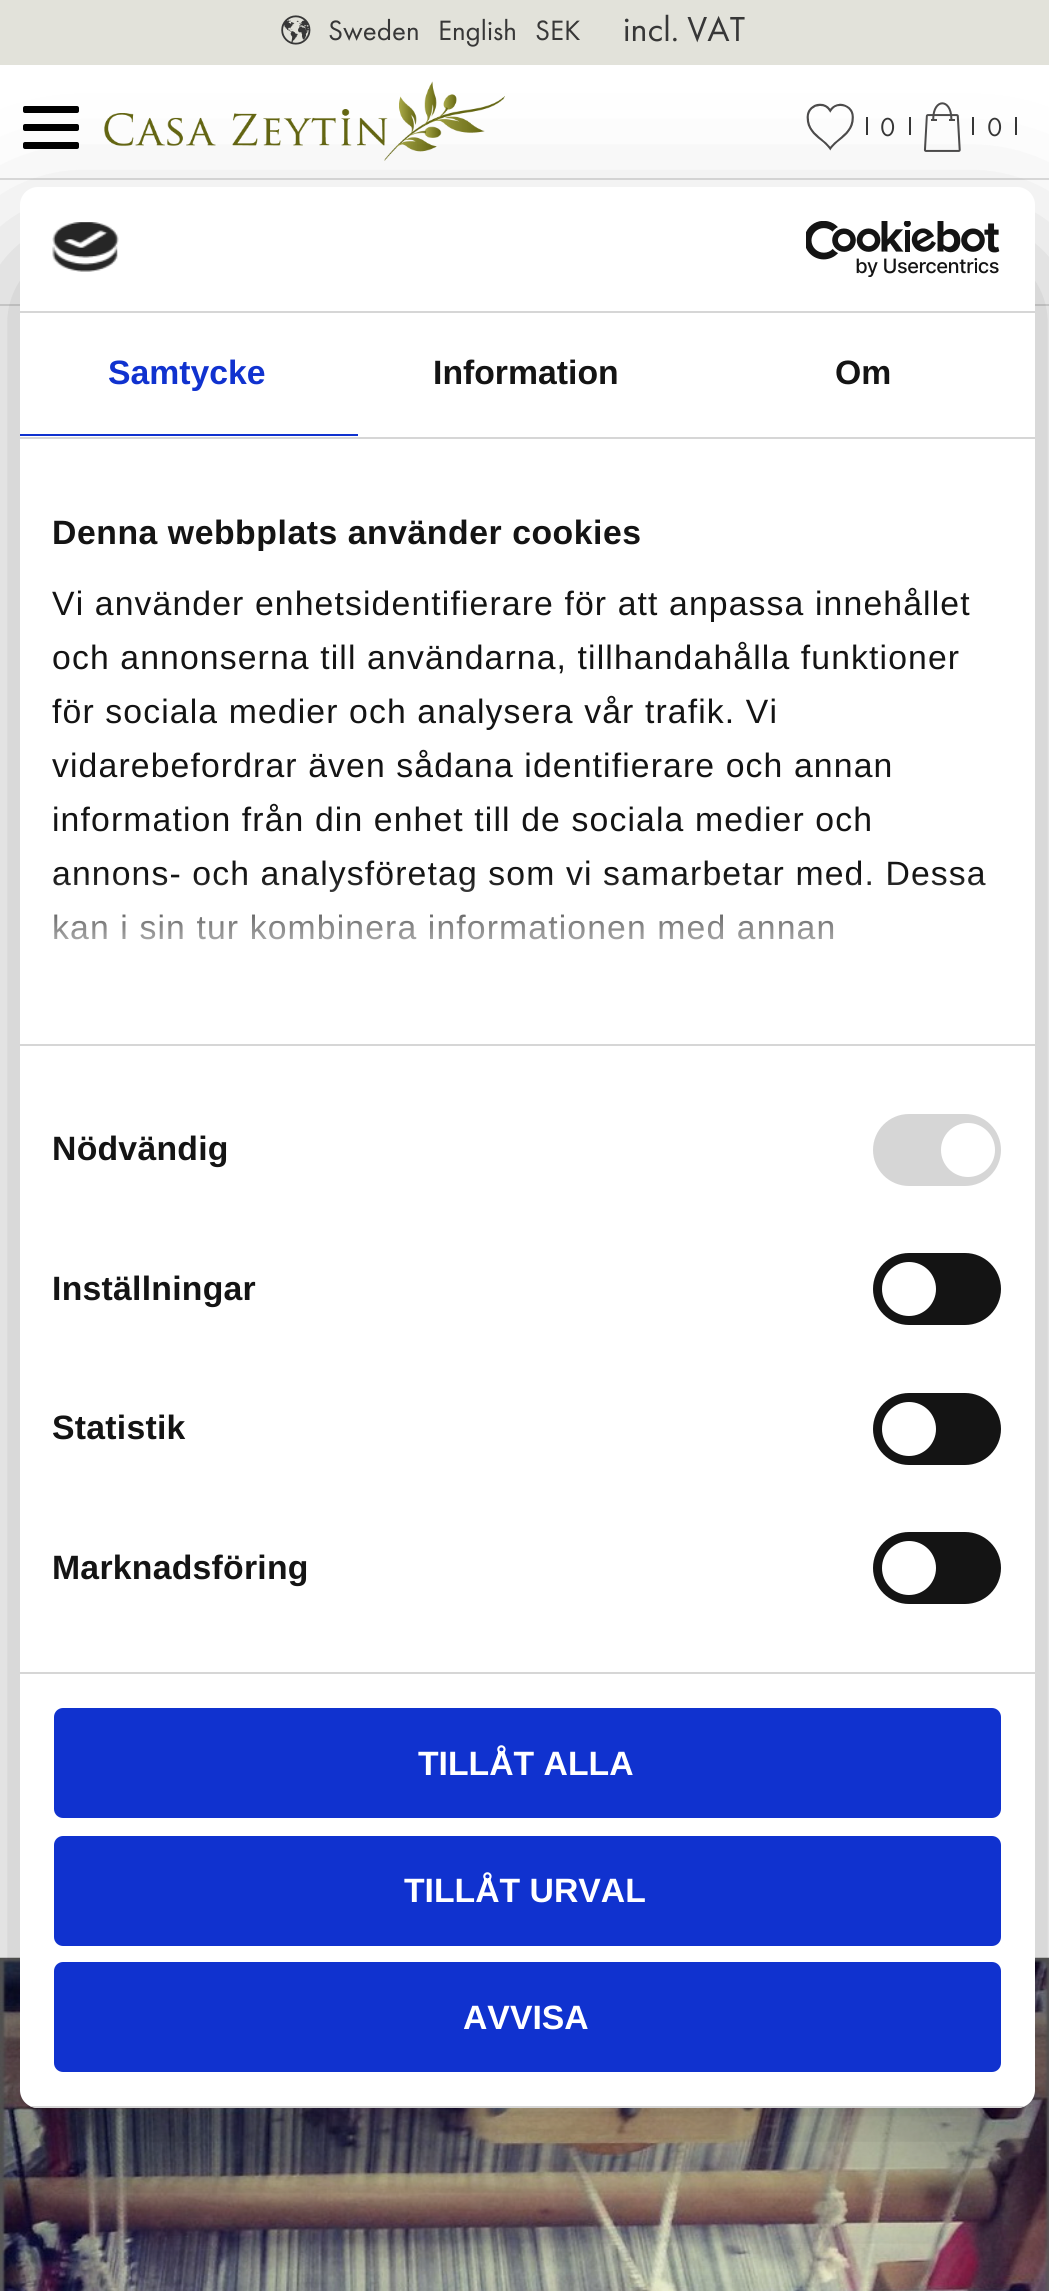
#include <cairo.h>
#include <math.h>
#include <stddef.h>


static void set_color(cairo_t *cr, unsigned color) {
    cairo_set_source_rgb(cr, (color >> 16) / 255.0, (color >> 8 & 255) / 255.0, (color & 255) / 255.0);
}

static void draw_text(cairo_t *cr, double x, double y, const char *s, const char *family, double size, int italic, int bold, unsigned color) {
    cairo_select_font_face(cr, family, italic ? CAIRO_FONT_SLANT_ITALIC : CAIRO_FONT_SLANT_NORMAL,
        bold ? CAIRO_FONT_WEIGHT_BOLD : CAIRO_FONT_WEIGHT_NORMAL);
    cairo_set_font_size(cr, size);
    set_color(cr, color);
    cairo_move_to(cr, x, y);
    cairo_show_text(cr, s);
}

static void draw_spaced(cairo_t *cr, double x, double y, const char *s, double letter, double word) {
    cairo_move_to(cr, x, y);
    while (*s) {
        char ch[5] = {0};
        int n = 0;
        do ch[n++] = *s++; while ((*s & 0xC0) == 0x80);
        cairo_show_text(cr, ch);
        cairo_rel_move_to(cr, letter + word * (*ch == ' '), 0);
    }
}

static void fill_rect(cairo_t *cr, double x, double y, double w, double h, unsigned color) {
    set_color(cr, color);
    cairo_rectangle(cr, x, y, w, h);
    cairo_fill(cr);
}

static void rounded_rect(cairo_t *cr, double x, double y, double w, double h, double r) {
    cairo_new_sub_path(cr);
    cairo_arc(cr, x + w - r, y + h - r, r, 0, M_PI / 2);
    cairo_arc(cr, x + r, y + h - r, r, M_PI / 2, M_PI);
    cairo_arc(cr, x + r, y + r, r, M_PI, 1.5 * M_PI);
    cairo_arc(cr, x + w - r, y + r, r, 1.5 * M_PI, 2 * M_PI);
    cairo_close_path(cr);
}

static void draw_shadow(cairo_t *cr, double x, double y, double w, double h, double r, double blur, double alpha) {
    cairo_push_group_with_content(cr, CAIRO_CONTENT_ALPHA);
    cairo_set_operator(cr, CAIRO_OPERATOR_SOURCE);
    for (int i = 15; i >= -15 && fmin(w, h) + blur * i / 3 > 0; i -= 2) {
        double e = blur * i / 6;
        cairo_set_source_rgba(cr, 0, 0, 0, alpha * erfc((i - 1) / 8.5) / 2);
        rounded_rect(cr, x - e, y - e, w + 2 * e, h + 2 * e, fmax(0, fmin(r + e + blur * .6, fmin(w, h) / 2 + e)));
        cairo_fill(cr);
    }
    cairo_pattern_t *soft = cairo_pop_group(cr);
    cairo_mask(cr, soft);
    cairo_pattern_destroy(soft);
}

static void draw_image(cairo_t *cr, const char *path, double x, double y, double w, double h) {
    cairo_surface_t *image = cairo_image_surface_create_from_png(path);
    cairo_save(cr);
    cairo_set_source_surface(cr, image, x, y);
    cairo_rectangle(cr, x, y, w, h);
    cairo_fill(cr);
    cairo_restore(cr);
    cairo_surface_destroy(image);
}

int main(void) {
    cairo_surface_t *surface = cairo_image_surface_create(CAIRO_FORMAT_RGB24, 1049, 2291);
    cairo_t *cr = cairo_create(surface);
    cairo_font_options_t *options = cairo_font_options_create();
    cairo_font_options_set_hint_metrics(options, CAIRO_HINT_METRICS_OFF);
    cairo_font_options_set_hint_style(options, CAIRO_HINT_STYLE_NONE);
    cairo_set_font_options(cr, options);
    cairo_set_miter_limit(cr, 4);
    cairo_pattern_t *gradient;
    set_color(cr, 0xFFFFFF);
    cairo_paint(cr);
    set_color(cr, 0x000000);
    rounded_rect(cr, 23, 124, 56, 7, 2);
    cairo_fill(cr);
    rounded_rect(cr, 23, 106, 56, 7, 2);
    cairo_fill(cr);
    rounded_rect(cr, 23, 142, 56, 7, 2);
    cairo_fill(cr);
    fill_rect(cr, 0, 0, 1049, 65, 0xE2E2DA);
    draw_image(cr, "assets/img1.png", 281, 15, 30, 30);
    draw_text(cr, 328, 40, "Sweden", "Futura PT", 29, 0, 0, 0x373737);
    draw_text(cr, 438, 40, "English", "Futura PT", 29, 0, 0, 0x373737);
    draw_text(cr, 535, 40, "SEK", "Futura PT", 29, 0, 0, 0x373737);
    draw_text(cr, 623, 41, "incl. VAT", "Futura PT", 36, 0, 0, 0x373737);
    draw_image(cr, "assets/img2.png", 104, 81, 401, 80);
    fill_rect(cr, 0, 178, 1049, 2, 0xDDDDDD);
    fill_rect(cr, 0, 304, 1049, 2, 0xDDDDDD);
    draw_image(cr, "assets/img3.png", 806, 103, 48, 48);
    fill_rect(cr, 909, 117, 2, 18, 0x373737);
    fill_rect(cr, 866, 117, 2, 18, 0x373737);
    draw_text(cr, 880, 136, "0", "Futura PT", 27, 0, 0, 0x373737);
    draw_image(cr, "assets/img4.png", 923, 102, 38, 50);
    fill_rect(cr, 1015, 117, 2, 18, 0x373737);
    fill_rect(cr, 972, 117, 2, 18, 0x373737);
    draw_text(cr, 987, 136, "0", "Futura PT", 27, 0, 0, 0x373737);
    draw_image(cr, "assets/img5.png", 0, 1957, 1049, 334);
    set_color(cr, 0x000000);
    draw_shadow(cr, 20, 259, 1015, 1921, 18, 76.5, 0.3);
    set_color(cr, 0xFFFFFF);
    rounded_rect(cr, 20, 187, 1015, 1921, 18);
    cairo_fill(cr);
    fill_rect(cr, 20, 311, 1015, 2, 0xD6D6D6);
    draw_image(cr, "assets/img6.png", 52, 222, 67, 50);
    draw_image(cr, "assets/img7.png", 806, 221, 194, 56);
    fill_rect(cr, 20, 437, 1015, 2, 0xD6D6D6);
    fill_rect(cr, 20, 434, 338, 2, 0x1032CF);
    draw_text(cr, 108, 384, "Samtycke", "Liberation Sans", 33.75, 0, 1, 0x1032CF);
    draw_text(cr, 433, 384, "Information", "Liberation Sans", 33.75, 0, 1, 0x141414);
    draw_text(cr, 835, 384, "Om", "Liberation Sans", 33.75, 0, 1, 0x141414);
    fill_rect(cr, 20, 1044, 1015, 2, 0xD6D6D6);
    set_color(cr, 0x141414);
    draw_spaced(cr, 52, 544, "Denna webbplats använder cookies", 0.55, 0);
    cairo_select_font_face(cr, "Liberation Sans", CAIRO_FONT_SLANT_NORMAL, CAIRO_FONT_WEIGHT_NORMAL);
    draw_spaced(cr, 52, 615, "Vi använder enhetsidentifierare för att anpassa innehållet", 1.12, 0);
    draw_spaced(cr, 52, 669, "och annonserna till användarna, tillhandahålla funktioner", 1.12, 0);
    draw_spaced(cr, 52, 723, "för sociala medier och analysera vår trafik. Vi", 1.12, 0);
    draw_spaced(cr, 52, 777, "vidarebefordrar även sådana identifierare och annan", 1.12, 0);
    draw_spaced(cr, 52, 831, "information från din enhet till de sociala medier och", 1.12, 0);
    draw_spaced(cr, 52, 885, "annons- och analysföretag som vi samarbetar med. Dessa", 1.12, 0);
    draw_spaced(cr, 52, 939, "kan i sin tur kombinera informationen med annan", 1.12, 0);
    gradient = cairo_pattern_create_linear(512, 1043, 512, 875);
    cairo_pattern_add_color_stop_rgba(gradient, 0, 1, 1, 1, 1);
    cairo_pattern_add_color_stop_rgba(gradient, 0.5, 1, 1, 1, 0.8);
    cairo_pattern_add_color_stop_rgba(gradient, 1, 1, 1, 1, 0);
    cairo_set_source(cr, gradient);
    cairo_pattern_destroy(gradient);
    cairo_rectangle(cr, 53, 877, 933, 63);
    cairo_fill(cr);
    fill_rect(cr, 20, 1672, 1015, 2, 0xD6D6D6);
    cairo_select_font_face(cr, "Liberation Sans", CAIRO_FONT_SLANT_NORMAL, CAIRO_FONT_WEIGHT_BOLD);
    set_color(cr, 0x141414);
    draw_spaced(cr, 52, 1160, "Nödvändig", 0.25, 0);
    set_color(cr, 0xD6D6D6);
    rounded_rect(cr, 873, 1114, 128, 72, 36);
    cairo_fill(cr);
    set_color(cr, 0xFFFFFF);
    cairo_arc(cr, 968, 1150, 27, 0, 2 * M_PI);
    cairo_fill(cr);
    set_color(cr, 0x141414);
    draw_spaced(cr, 52, 1300, "Inställningar", 0.25, 0);
    rounded_rect(cr, 873, 1253, 128, 72, 36);
    cairo_fill(cr);
    set_color(cr, 0xFFFFFF);
    cairo_arc(cr, 909, 1289, 27, 0, 2 * M_PI);
    cairo_fill(cr);
    set_color(cr, 0x141414);
    draw_spaced(cr, 52, 1439, "Statistik", 0.25, 0);
    rounded_rect(cr, 873, 1393, 128, 72, 36);
    cairo_fill(cr);
    set_color(cr, 0xFFFFFF);
    cairo_arc(cr, 909, 1429, 27, 0, 2 * M_PI);
    cairo_fill(cr);
    set_color(cr, 0x141414);
    draw_spaced(cr, 52, 1579, "Marknadsföring", 0.25, 0);
    rounded_rect(cr, 873, 1532, 128, 72, 36);
    cairo_fill(cr);
    set_color(cr, 0xFFFFFF);
    cairo_arc(cr, 909, 1568, 27, 0, 2 * M_PI);
    cairo_fill(cr);
    cairo_save(cr);
    rounded_rect(cr, 20, 187, 1015, 1921, 18);
    cairo_clip(cr);
    fill_rect(cr, 30, 2106, 995, 2, 0xD6D6D6);
    cairo_restore(cr);
    set_color(cr, 0x1032CF);
    rounded_rect(cr, 56.5, 1710.5, 942, 105, 6.5);
    cairo_fill_preserve(cr);
    cairo_set_line_width(cr, 5);
    cairo_stroke(cr);
    draw_text(cr, 418, 1775, "TILLÅT ALLA", "Liberation Sans", 33.75, 0, 1, 0xFFFFFF);
    set_color(cr, 0x1032CF);
    rounded_rect(cr, 56.5, 1838.5, 942, 105, 6.5);
    cairo_fill_preserve(cr);
    cairo_stroke(cr);
    draw_text(cr, 404, 1902, "TILLÅT URVAL", "Liberation Sans", 33.75, 0, 1, 0xFFFFFF);
    set_color(cr, 0x1032CF);
    rounded_rect(cr, 56.5, 1964.5, 942, 105, 6.5);
    cairo_fill_preserve(cr);
    cairo_stroke(cr);
    draw_text(cr, 463, 2029, "AVVISA", "Liberation Sans", 33.75, 0, 1, 0xFFFFFF);
    cairo_surface_write_to_png(surface, "output.png");
    cairo_font_options_destroy(options);
    cairo_destroy(cr);
    cairo_surface_destroy(surface);
    return 0;
}
